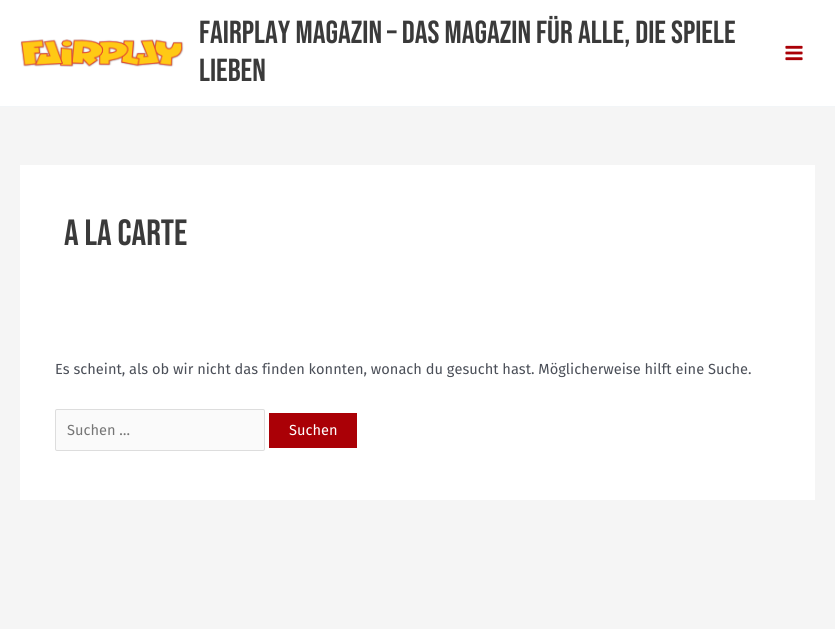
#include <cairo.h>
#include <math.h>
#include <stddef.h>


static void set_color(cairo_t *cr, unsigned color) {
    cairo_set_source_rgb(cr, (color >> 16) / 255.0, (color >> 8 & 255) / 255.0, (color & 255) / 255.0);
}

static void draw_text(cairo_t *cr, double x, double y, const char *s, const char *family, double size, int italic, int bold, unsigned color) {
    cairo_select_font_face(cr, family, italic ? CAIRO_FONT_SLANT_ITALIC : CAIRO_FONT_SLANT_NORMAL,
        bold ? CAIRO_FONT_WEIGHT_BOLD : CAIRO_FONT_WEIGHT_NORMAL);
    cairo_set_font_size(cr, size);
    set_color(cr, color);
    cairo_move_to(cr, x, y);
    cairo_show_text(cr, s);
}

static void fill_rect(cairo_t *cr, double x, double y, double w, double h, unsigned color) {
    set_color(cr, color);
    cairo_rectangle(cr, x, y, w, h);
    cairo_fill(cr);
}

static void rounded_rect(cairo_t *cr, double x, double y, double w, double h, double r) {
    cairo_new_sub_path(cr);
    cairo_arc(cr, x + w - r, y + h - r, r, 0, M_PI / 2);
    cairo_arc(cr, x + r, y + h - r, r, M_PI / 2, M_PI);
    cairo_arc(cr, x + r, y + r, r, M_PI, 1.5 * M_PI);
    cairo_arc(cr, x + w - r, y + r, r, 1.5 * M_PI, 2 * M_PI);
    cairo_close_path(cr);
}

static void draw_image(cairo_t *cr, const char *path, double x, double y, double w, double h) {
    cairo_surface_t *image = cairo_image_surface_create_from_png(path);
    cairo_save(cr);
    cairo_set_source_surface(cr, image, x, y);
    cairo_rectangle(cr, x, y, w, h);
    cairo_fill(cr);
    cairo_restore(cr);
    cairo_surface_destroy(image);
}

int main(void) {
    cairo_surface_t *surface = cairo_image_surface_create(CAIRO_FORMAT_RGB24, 835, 629);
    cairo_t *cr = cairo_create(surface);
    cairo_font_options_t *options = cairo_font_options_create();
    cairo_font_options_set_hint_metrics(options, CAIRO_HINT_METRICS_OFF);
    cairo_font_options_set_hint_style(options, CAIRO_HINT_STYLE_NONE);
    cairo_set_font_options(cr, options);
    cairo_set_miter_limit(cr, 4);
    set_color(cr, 0xF5F5F5);
    cairo_paint(cr);
    fill_rect(cr, 0, 0, 835, 106, 0xFFFFFF);
    fill_rect(cr, 0, 106, 835, 1, 0xF2F5F7);
    draw_image(cr, "assets/img1.png", 20, 39, 164, 28);
    draw_text(cr, 199, 43, "Fairplay Magazin – Das Magazin für alle, die Spiele", "Bebas Neue", 31.9, 0, 0, 0x3A3A3A);
    draw_text(cr, 199, 81, "lieben", "Bebas Neue", 31.9, 0, 0, 0x3A3A3A);
    draw_image(cr, "assets/img2.png", 785, 45, 18, 16);
    fill_rect(cr, 20, 165, 795, 335, 0xFFFFFF);
    draw_text(cr, 64, 245, "A La Carte", "Bebas Neue", 36.5, 0, 0, 0x3A3A3A);
    draw_text(cr, 55, 374, "Es scheint, als ob wir nicht das finden konnten, wonach du gesucht hast. Möglicherweise hilft eine Suche.", "Fira Sans", 14.6, 0, 0, 0x4B4F58);
    set_color(cr, 0xFAFAFA);
    rounded_rect(cr, 55.5, 409.5, 209, 41, 1.5);
    cairo_fill_preserve(cr);
    set_color(cr, 0xDDDDDD);
    cairo_set_line_width(cr, 1);
    cairo_stroke(cr);
    draw_text(cr, 67, 435, "Suchen …", "Fira Sans", 14.6, 0, 0, 0x757575);
    fill_rect(cr, 269, 413, 88, 35, 0xAA0006);
    draw_text(cr, 289, 435, "Suchen", "Fira Sans", 14.6, 0, 0, 0xFFFFFF);
    cairo_surface_write_to_png(surface, "output.png");
    cairo_font_options_destroy(options);
    cairo_destroy(cr);
    cairo_surface_destroy(surface);
    return 0;
}
